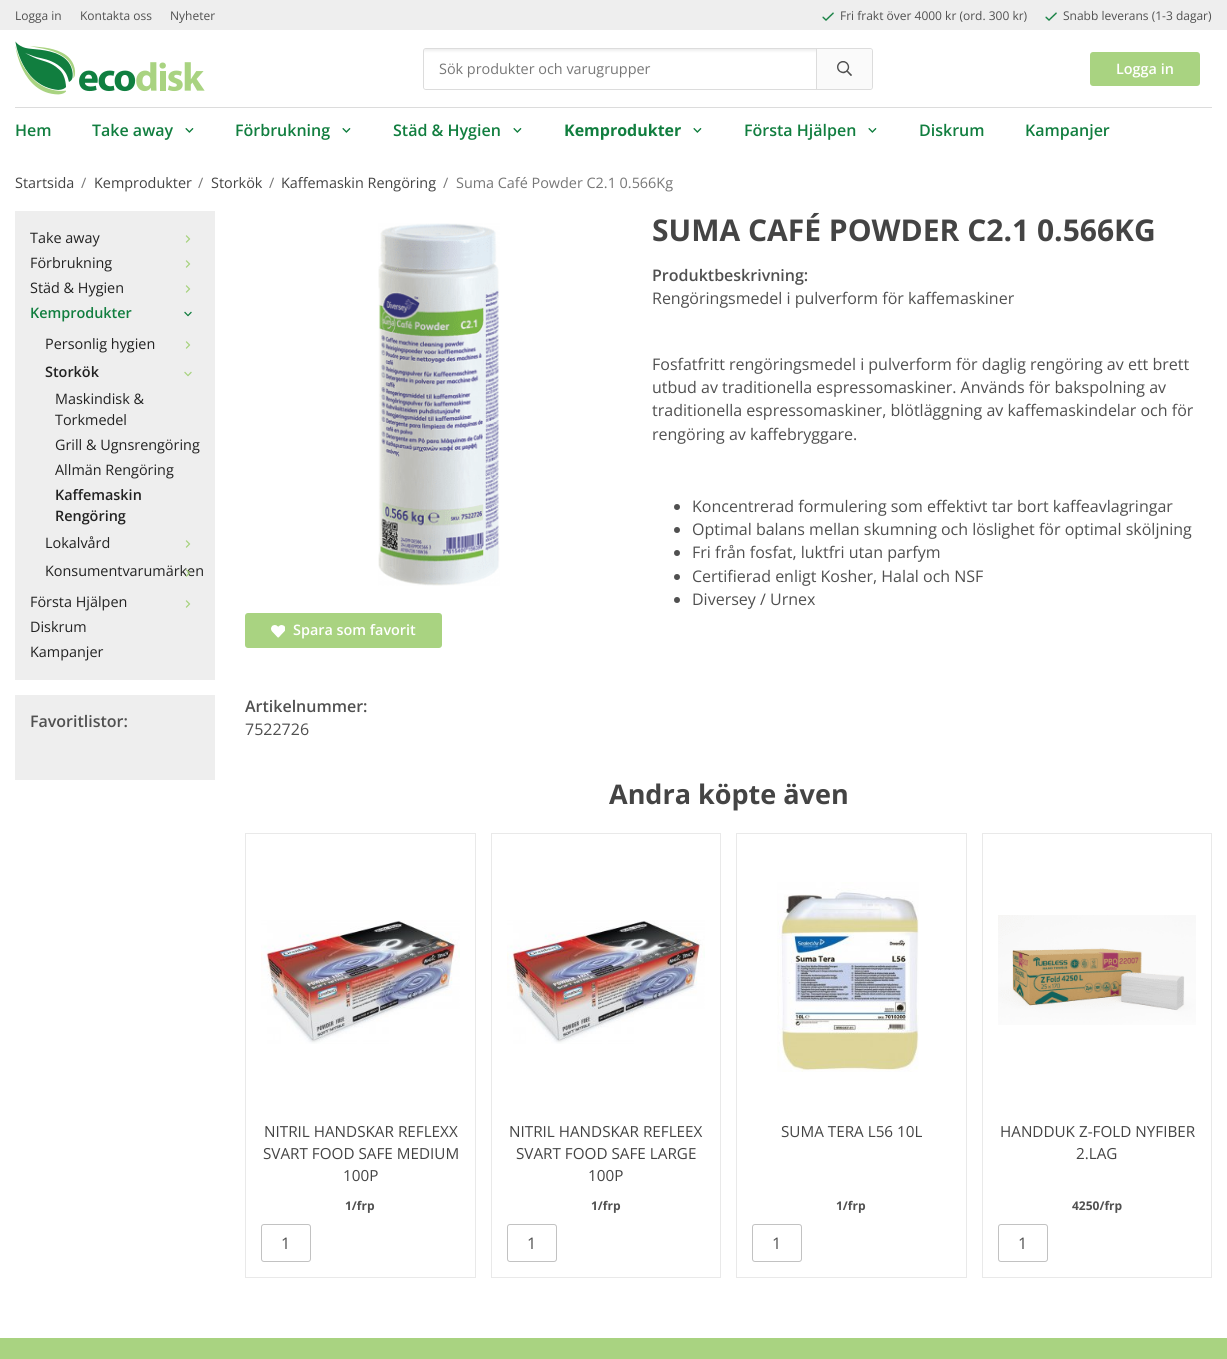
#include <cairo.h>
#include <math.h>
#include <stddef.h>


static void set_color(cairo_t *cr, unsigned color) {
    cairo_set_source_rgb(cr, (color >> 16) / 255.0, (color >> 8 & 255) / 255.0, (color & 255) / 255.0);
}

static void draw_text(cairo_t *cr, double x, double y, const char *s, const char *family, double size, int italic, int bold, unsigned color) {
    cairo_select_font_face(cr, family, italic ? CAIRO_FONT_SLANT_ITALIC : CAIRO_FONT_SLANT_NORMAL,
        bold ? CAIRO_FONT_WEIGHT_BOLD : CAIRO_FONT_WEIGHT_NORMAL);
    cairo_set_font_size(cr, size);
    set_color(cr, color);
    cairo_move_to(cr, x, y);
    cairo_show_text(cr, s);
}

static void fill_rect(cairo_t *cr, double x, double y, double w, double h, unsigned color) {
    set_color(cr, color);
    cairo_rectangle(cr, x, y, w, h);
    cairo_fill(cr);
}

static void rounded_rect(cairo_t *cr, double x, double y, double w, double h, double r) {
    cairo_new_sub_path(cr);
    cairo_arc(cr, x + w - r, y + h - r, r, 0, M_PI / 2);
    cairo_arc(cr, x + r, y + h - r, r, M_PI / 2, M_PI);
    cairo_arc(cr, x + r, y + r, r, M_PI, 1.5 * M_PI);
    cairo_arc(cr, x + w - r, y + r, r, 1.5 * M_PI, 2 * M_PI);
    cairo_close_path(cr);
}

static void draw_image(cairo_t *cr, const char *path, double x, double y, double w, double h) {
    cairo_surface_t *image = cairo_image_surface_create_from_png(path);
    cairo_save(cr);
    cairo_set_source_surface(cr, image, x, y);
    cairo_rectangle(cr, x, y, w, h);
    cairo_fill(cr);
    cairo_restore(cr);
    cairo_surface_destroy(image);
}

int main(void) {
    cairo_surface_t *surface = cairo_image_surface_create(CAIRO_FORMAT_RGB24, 1227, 1359);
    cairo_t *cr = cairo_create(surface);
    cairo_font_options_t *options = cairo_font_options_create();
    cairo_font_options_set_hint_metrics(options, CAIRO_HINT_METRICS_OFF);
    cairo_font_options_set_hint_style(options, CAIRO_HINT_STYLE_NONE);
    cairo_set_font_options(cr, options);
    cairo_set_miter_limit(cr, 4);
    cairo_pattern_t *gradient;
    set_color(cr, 0xFFFFFF);
    cairo_paint(cr);
    fill_rect(cr, 0, 0, 1227, 30, 0xEEEEEE);
    draw_text(cr, 15, 20, "Logga in", "Open Sans", 12, 0, 0, 0x505050);
    draw_text(cr, 80, 20, "Kontakta oss", "Open Sans", 12, 0, 0, 0x505050);
    draw_text(cr, 170, 20, "Nyheter", "Open Sans", 12, 0, 0, 0x505050);
    draw_image(cr, "assets/img1.png", 822, 12, 12, 9);
    draw_text(cr, 840, 20, "Fri frakt över 4000 kr (ord. 300 kr)", "Open Sans", 12, 0, 0, 0x505050);
    draw_image(cr, "assets/img1.png", 1045, 12, 12, 9);
    draw_text(cr, 1063, 20, "Snabb leverans (1-3 dagar)", "Open Sans", 12, 0, 0, 0x505050);
    draw_image(cr, "assets/img2.png", 15, 41, 190, 54);
    rounded_rect(cr, 423.5, 48.5, 449, 41, 2.5);
    set_color(cr, 0xDCDCDC);
    cairo_set_line_width(cr, 1);
    cairo_stroke(cr);
    gradient = cairo_pattern_create_linear(620, 89, 620, 49);
    cairo_pattern_add_color_stop_rgba(gradient, 0.9, 1, 1, 1, 1);
    cairo_pattern_add_color_stop_rgba(gradient, 1, 0.933, 0.933, 0.933, 1);
    cairo_set_source(cr, gradient);
    cairo_pattern_destroy(gradient);
    cairo_new_path(cr);
    cairo_move_to(cr, 426, 49);
    cairo_line_to(cr, 816, 49);
    cairo_line_to(cr, 816, 89);
    cairo_line_to(cr, 426, 89);
    cairo_curve_to(cr, 425, 89, 424, 88, 424, 87);
    cairo_line_to(cr, 424, 51);
    cairo_curve_to(cr, 424, 50, 425, 49, 426, 49);
    cairo_close_path(cr);
    cairo_fill(cr);
    draw_text(cr, 439, 74, "Sök produkter och varugrupper", "Open Sans", 14.4, 0, 0, 0x777777);
    set_color(cr, 0xFAFAFA);
    cairo_new_path(cr);
    cairo_move_to(cr, 816, 49);
    cairo_line_to(cr, 870, 49);
    cairo_curve_to(cr, 871, 49, 872, 50, 872, 51);
    cairo_line_to(cr, 872, 87);
    cairo_curve_to(cr, 872, 88, 871, 89, 870, 89);
    cairo_line_to(cr, 816, 89);
    cairo_close_path(cr);
    cairo_fill(cr);
    fill_rect(cr, 816, 49, 1, 40, 0xDCDCDC);
    draw_image(cr, "assets/img3.png", 837, 61, 15, 15);
    set_color(cr, 0xA9D381);
    rounded_rect(cr, 1090, 52, 110, 34, 3);
    cairo_fill(cr);
    draw_text(cr, 1116, 74, "Logga in", "Open Sans SemiBold", 14.4, 0, 0, 0xFFFFFF);
    fill_rect(cr, 15, 107, 1197, 1, 0xDCDCDC);
    draw_text(cr, 15, 136, "Hem", "Open Sans SemiBold", 16, 0, 0, 0x117E3F);
    draw_text(cr, 92, 136, "Take away", "Open Sans SemiBold", 16, 0, 0, 0x117E3F);
    draw_image(cr, "assets/img4.png", 185, 128, 9, 5);
    draw_text(cr, 235, 136, "Förbrukning", "Open Sans SemiBold", 16, 0, 0, 0x117E3F);
    draw_image(cr, "assets/img4.png", 342, 128, 9, 5);
    draw_text(cr, 393, 136, "Städ & Hygien", "Open Sans SemiBold", 16, 0, 0, 0x117E3F);
    draw_image(cr, "assets/img4.png", 513, 128, 9, 5);
    draw_text(cr, 564, 136, "Kemprodukter", "Open Sans", 16, 0, 1, 0x117E3F);
    draw_image(cr, "assets/img5.png", 693, 128, 9, 5);
    draw_text(cr, 744, 136, "Första Hjälpen", "Open Sans SemiBold", 16, 0, 0, 0x117E3F);
    draw_image(cr, "assets/img4.png", 868, 128, 9, 5);
    draw_text(cr, 919, 136, "Diskrum", "Open Sans SemiBold", 16, 0, 0, 0x117E3F);
    draw_text(cr, 1025, 136, "Kampanjer", "Open Sans SemiBold", 16, 0, 0, 0x117E3F);
    draw_text(cr, 15, 188, "Startsida", "Open Sans", 14.4, 0, 0, 0x444444);
    draw_text(cr, 81, 188, "/", "Open Sans", 14.4, 0, 0, 0x777777);
    draw_text(cr, 94, 188, "Kemprodukter", "Open Sans", 14.4, 0, 0, 0x444444);
    draw_text(cr, 198, 188, "/", "Open Sans", 14.4, 0, 0, 0x777777);
    draw_text(cr, 211, 188, "Storkök", "Open Sans", 14.4, 0, 0, 0x444444);
    draw_text(cr, 269, 188, "/", "Open Sans", 14.4, 0, 0, 0x777777);
    draw_text(cr, 281, 188, "Kaffemaskin Rengöring", "Open Sans", 14.4, 0, 0, 0x444444);
    draw_text(cr, 443, 188, "/", "Open Sans", 14.4, 0, 0, 0x777777);
    draw_text(cr, 456, 188, "Suma Café Powder C2.1 0.566Kg", "Open Sans", 14.4, 0, 0, 0x777777);
    fill_rect(cr, 15, 211, 200, 469, 0xEEEEEE);
    draw_text(cr, 30, 243, "Take away", "Open Sans", 14.4, 0, 0, 0x222222);
    draw_image(cr, "assets/img6.png", 185, 235, 6, 8);
    draw_text(cr, 30, 268, "Förbrukning", "Open Sans", 14.4, 0, 0, 0x222222);
    draw_image(cr, "assets/img6.png", 185, 260, 6, 8);
    draw_text(cr, 30, 293, "Städ & Hygien", "Open Sans", 14.4, 0, 0, 0x222222);
    draw_image(cr, "assets/img6.png", 185, 285, 6, 8);
    draw_text(cr, 30, 318, "Kemprodukter", "Open Sans SemiBold", 14.4, 0, 0, 0x117E3F);
    draw_image(cr, "assets/img7.png", 184, 311, 8, 6);
    draw_text(cr, 45, 349, "Personlig hygien", "Open Sans", 14.4, 0, 0, 0x222222);
    draw_image(cr, "assets/img6.png", 185, 341, 6, 8);
    draw_text(cr, 45, 377, "Storkök", "Open Sans SemiBold", 14.4, 0, 0, 0x222222);
    draw_image(cr, "assets/img8.png", 184, 371, 8, 6);
    draw_text(cr, 55, 404, "Maskindisk &", "Open Sans", 14.4, 0, 0, 0x222222);
    draw_text(cr, 55, 425, "Torkmedel", "Open Sans", 14.4, 0, 0, 0x222222);
    draw_text(cr, 55, 450, "Grill & Ugnsrengöring", "Open Sans", 14.4, 0, 0, 0x222222);
    draw_text(cr, 55, 475, "Allmän Rengöring", "Open Sans", 14.4, 0, 0, 0x222222);
    draw_text(cr, 55, 500, "Kaffemaskin", "Open Sans SemiBold", 14.4, 0, 0, 0x222222);
    draw_text(cr, 55, 521, "Rengöring", "Open Sans SemiBold", 14.4, 0, 0, 0x222222);
    draw_text(cr, 45, 548, "Lokalvård", "Open Sans", 14.4, 0, 0, 0x222222);
    draw_image(cr, "assets/img6.png", 185, 540, 6, 8);
    draw_text(cr, 45, 576, "Konsumentvarumärken", "Open Sans", 14.4, 0, 0, 0x222222);
    draw_image(cr, "assets/img9.png", 185, 569, 6, 8);
    draw_text(cr, 30, 607, "Första Hjälpen", "Open Sans", 14.4, 0, 0, 0x222222);
    draw_image(cr, "assets/img6.png", 185, 600, 6, 8);
    draw_text(cr, 30, 632, "Diskrum", "Open Sans", 14.4, 0, 0, 0x222222);
    draw_text(cr, 30, 657, "Kampanjer", "Open Sans", 14.4, 0, 0, 0x222222);
    fill_rect(cr, 15, 695, 200, 85, 0xEEEEEE);
    draw_text(cr, 30, 727, "Favoritlistor:", "Open Sans SemiBold", 16, 0, 0, 0x505050);
    draw_image(cr, "assets/img10.png", 378, 223, 122, 363);
    draw_text(cr, 652, 241, "SUMA CAFÉ POWDER C2.1 0.566KG", "Open Sans", 30, 0, 1, 0x444444);
    draw_text(cr, 652, 281, "Produktbeskrivning:", "Open Sans SemiBold", 16, 0, 0, 0x505050);
    draw_text(cr, 652, 304, "Rengöringsmedel i pulverform för kaffemaskiner", "Open Sans", 16, 0, 0, 0x505050);
    draw_text(cr, 652, 370, "Fosfatfritt rengöringsmedel i pulverform för daglig rengöring av ett brett", "Open Sans", 16, 0, 0, 0x505050);
    draw_text(cr, 652, 393, "utbud av traditionella espressomaskiner. Används för bakspolning av", "Open Sans", 16, 0, 0, 0x505050);
    draw_text(cr, 652, 416, "traditionella espressomaskiner, blötläggning av kaffemaskindelar och för", "Open Sans", 16, 0, 0, 0x505050);
    draw_text(cr, 652, 440, "rengöring av kaffebryggare.", "Open Sans", 16, 0, 0, 0x505050);
    cairo_new_path(cr);
    cairo_arc(cr, 677, 507, 3, 0, 2 * M_PI);
    cairo_fill(cr);
    draw_text(cr, 692, 512, "Koncentrerad formulering som effektivt tar bort kaffeavlagringar", "Open Sans", 16, 0, 0, 0x505050);
    cairo_new_path(cr);
    cairo_arc(cr, 677, 530, 3, 0, 2 * M_PI);
    cairo_fill(cr);
    draw_text(cr, 692, 535, "Optimal balans mellan skumning och löslighet för optimal sköljning", "Open Sans", 16, 0, 0, 0x505050);
    cairo_new_path(cr);
    cairo_arc(cr, 677, 553, 3, 0, 2 * M_PI);
    cairo_fill(cr);
    draw_text(cr, 692, 558, "Fri från fosfat, luktfri utan parfym", "Open Sans", 16, 0, 0, 0x505050);
    cairo_new_path(cr);
    cairo_arc(cr, 677, 577, 3, 0, 2 * M_PI);
    cairo_fill(cr);
    draw_text(cr, 692, 582, "Certifierad enligt Kosher, Halal och NSF", "Open Sans", 16, 0, 0, 0x505050);
    cairo_new_path(cr);
    cairo_arc(cr, 677, 600, 3, 0, 2 * M_PI);
    cairo_fill(cr);
    draw_text(cr, 692, 605, "Diversey / Urnex", "Open Sans", 16, 0, 0, 0x505050);
    set_color(cr, 0xA9D381);
    rounded_rect(cr, 245, 613, 197, 35, 3);
    cairo_fill(cr);
    draw_image(cr, "assets/img11.png", 271, 625, 14, 13);
    draw_text(cr, 293, 635, "Spara som favorit", "Open Sans SemiBold", 14.4, 0, 0, 0xFFFFFF);
    draw_text(cr, 245, 712, "Artikelnummer:", "Open Sans SemiBold", 16, 0, 0, 0x505050);
    draw_text(cr, 245, 735, "7522726", "Open Sans", 16, 0, 0, 0x505050);
    draw_text(cr, 609, 804, "Andra köpte även", "Open Sans", 27, 0, 1, 0x444444);
    cairo_rectangle(cr, 245.5, 833.5, 230, 444);
    set_color(cr, 0xE9E9E9);
    cairo_stroke(cr);
    draw_image(cr, "assets/img12.png", 261, 920, 199, 124);
    draw_text(cr, 264, 1137, "NITRIL HANDSKAR REFLEXX", "Open Sans", 15.25, 0, 0, 0x444444);
    draw_text(cr, 263, 1159, "SVART FOOD SAFE MEDIUM", "Open Sans", 15.25, 0, 0, 0x444444);
    draw_text(cr, 343, 1181, "100P", "Open Sans", 15.25, 0, 0, 0x444444);
    draw_text(cr, 345, 1210, "1/frp", "Open Sans", 12, 0, 1, 0x505050);
    rounded_rect(cr, 261.5, 1224.5, 49, 37, 2.5);
    set_color(cr, 0xC2C2C2);
    cairo_stroke(cr);
    draw_text(cr, 281, 1249, "1", "Open Sans", 16, 0, 0, 0x505050);
    cairo_rectangle(cr, 491.5, 833.5, 229, 444);
    set_color(cr, 0xE9E9E9);
    cairo_stroke(cr);
    draw_image(cr, "assets/img13.png", 507, 920, 198, 124);
    draw_text(cr, 509, 1137, "NITRIL HANDSKAR REFLEEX", "Open Sans", 15.25, 0, 0, 0x444444);
    draw_text(cr, 516, 1159, "SVART FOOD SAFE LARGE", "Open Sans", 15.25, 0, 0, 0x444444);
    draw_text(cr, 588, 1181, "100P", "Open Sans", 15.25, 0, 0, 0x444444);
    draw_text(cr, 591, 1210, "1/frp", "Open Sans", 12, 0, 1, 0x505050);
    rounded_rect(cr, 507.5, 1224.5, 49, 37, 2.5);
    set_color(cr, 0xC2C2C2);
    cairo_stroke(cr);
    draw_text(cr, 527, 1249, "1", "Open Sans", 16, 0, 0, 0x505050);
    cairo_rectangle(cr, 736.5, 833.5, 230, 444);
    set_color(cr, 0xE9E9E9);
    cairo_stroke(cr);
    draw_image(cr, "assets/img14.png", 777, 882, 142, 190);
    draw_text(cr, 781, 1137, "SUMA TERA L56 10L", "Open Sans", 15.25, 0, 0, 0x444444);
    draw_text(cr, 836, 1210, "1/frp", "Open Sans", 12, 0, 1, 0x505050);
    rounded_rect(cr, 752.5, 1224.5, 49, 37, 2.5);
    set_color(cr, 0xC2C2C2);
    cairo_stroke(cr);
    draw_text(cr, 772, 1249, "1", "Open Sans", 16, 0, 0, 0x505050);
    cairo_rectangle(cr, 982.5, 833.5, 229, 444);
    set_color(cr, 0xE9E9E9);
    cairo_stroke(cr);
    draw_image(cr, "assets/img15.png", 998, 915, 198, 110);
    draw_text(cr, 1000, 1137, "HANDDUK Z-FOLD NYFIBER", "Open Sans", 15.25, 0, 0, 0x444444);
    draw_text(cr, 1076, 1159, "2.LAG", "Open Sans", 15.25, 0, 0, 0x444444);
    draw_text(cr, 1072, 1210, "4250/frp", "Open Sans", 12, 0, 1, 0x505050);
    rounded_rect(cr, 998.5, 1224.5, 49, 37, 2.5);
    set_color(cr, 0xC2C2C2);
    cairo_stroke(cr);
    draw_text(cr, 1018, 1249, "1", "Open Sans", 16, 0, 0, 0x505050);
    fill_rect(cr, 0, 1338, 1227, 21, 0xA9D381);
    cairo_surface_write_to_png(surface, "output.png");
    cairo_font_options_destroy(options);
    cairo_destroy(cr);
    cairo_surface_destroy(surface);
    return 0;
}
